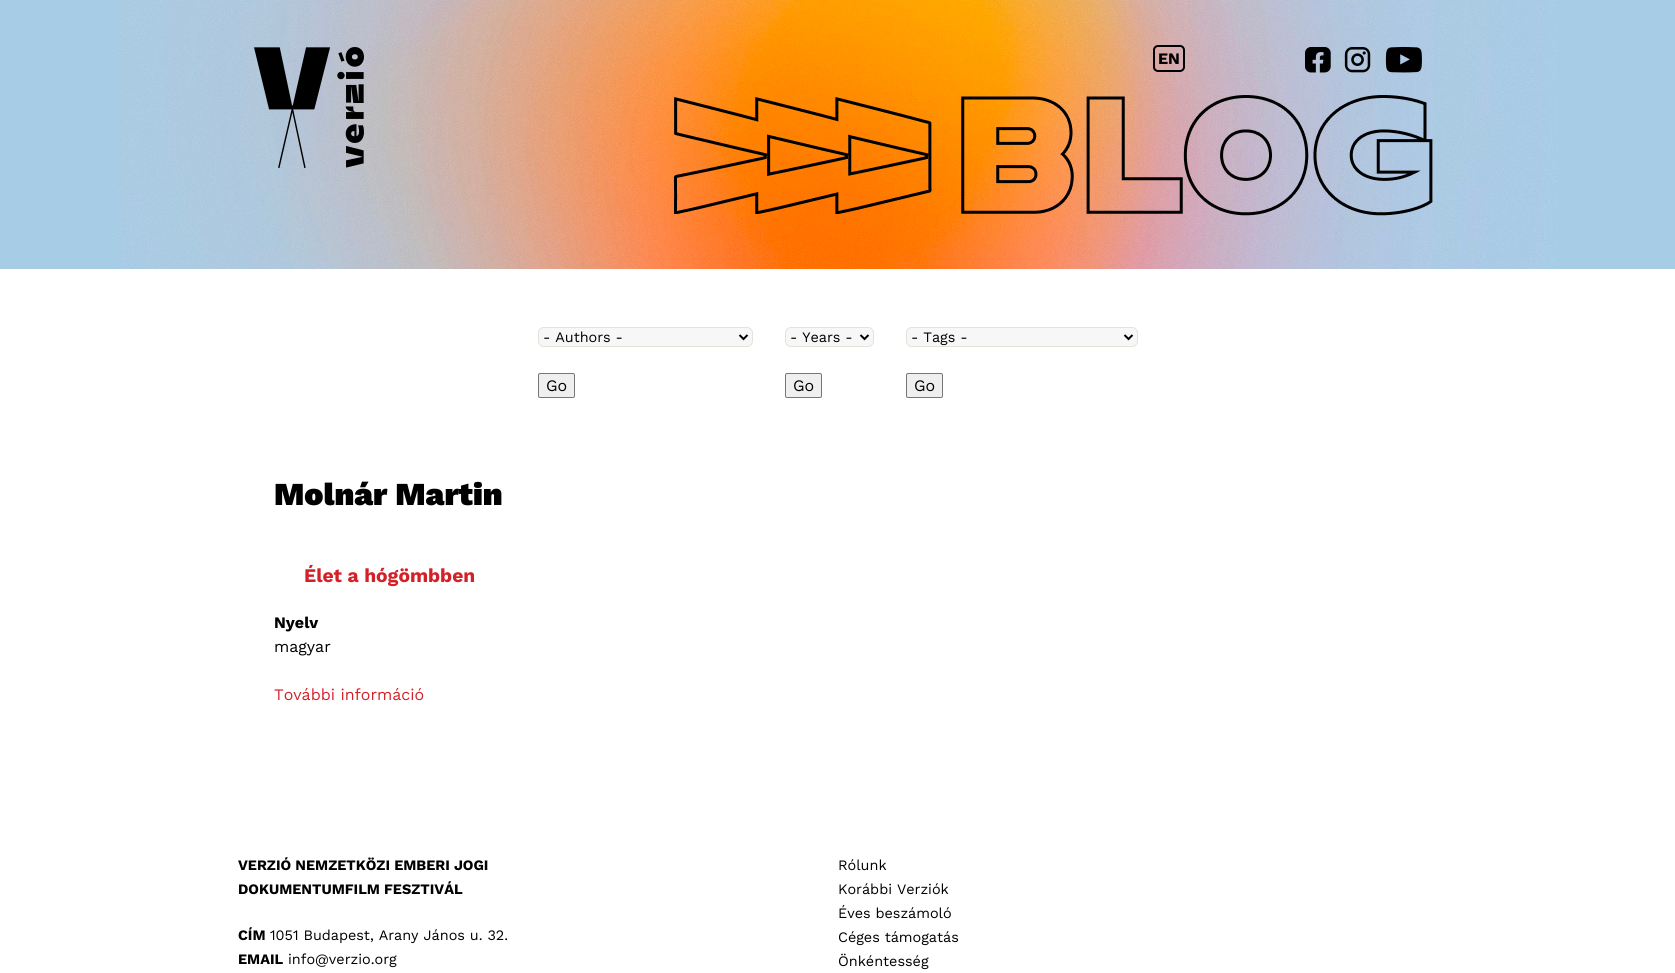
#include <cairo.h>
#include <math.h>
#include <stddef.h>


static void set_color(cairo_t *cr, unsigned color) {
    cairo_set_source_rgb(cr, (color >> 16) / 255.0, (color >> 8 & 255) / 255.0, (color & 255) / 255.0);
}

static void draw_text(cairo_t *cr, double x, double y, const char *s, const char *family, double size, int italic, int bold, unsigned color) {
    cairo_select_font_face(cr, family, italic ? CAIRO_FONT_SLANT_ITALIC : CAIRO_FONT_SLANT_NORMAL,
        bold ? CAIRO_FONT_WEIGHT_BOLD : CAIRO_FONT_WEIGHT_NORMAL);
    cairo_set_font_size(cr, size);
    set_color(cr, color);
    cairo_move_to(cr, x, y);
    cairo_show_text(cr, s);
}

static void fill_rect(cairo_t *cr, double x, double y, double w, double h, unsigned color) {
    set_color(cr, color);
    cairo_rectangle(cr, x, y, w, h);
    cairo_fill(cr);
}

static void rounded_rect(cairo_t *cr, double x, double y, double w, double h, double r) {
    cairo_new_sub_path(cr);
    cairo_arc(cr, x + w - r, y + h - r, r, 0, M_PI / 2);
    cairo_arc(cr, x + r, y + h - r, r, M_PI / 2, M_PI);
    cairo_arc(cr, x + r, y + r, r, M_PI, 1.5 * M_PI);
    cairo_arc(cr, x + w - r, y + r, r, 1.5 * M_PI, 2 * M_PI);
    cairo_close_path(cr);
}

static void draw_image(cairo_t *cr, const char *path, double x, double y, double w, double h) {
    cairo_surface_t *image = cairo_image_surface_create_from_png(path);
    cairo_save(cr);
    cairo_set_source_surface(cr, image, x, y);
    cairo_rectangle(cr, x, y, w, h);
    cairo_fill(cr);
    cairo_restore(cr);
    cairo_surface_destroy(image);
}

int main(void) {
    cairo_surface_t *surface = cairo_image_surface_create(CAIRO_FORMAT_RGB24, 1675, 973);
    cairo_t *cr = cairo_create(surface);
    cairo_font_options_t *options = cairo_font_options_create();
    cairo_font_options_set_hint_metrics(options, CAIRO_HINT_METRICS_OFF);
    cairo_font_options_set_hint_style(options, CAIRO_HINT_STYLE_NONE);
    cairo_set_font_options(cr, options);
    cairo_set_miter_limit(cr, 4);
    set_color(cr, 0xFFFFFF);
    cairo_paint(cr);
    fill_rect(cr, 0, 0, 1675, 269, 0xA7CCE6);
    draw_image(cr, "assets/img1.png", 118, 0, 1440, 269);
    draw_image(cr, "assets/img2.png", 674, 95, 759, 121);
    draw_image(cr, "assets/img3.png", 254, 47, 110, 121);
    rounded_rect(cr, 1154, 46, 30, 25, 4);
    set_color(cr, 0x000000);
    cairo_stroke(cr);
    draw_text(cr, 1158, 64, "EN", "Work Sans", 16, 0, 1, 0x000000);
    draw_image(cr, "assets/img4.png", 1305, 47, 26, 26);
    draw_image(cr, "assets/img5.png", 1344, 47, 27, 26);
    draw_image(cr, "assets/img6.png", 1385, 47, 37, 26);
    set_color(cr, 0xF7F7F7);
    rounded_rect(cr, 538.5, 327.5, 214, 19, 5.5);
    cairo_fill_preserve(cr);
    set_color(cr, 0xE6E2D7);
    cairo_set_line_width(cr, 1);
    cairo_stroke(cr);
    cairo_new_path(cr);
    cairo_move_to(cr, 739.5, 335);
    cairo_line_to(cr, 743.5, 339);
    cairo_line_to(cr, 747.5, 335);
    set_color(cr, 0x000000);
    cairo_set_line_width(cr, 2);
    cairo_stroke(cr);
    draw_text(cr, 543, 342, "- Authors -", "Work Sans", 14.4, 0, 0, 0x000000);
    set_color(cr, 0xEFEFEF);
    rounded_rect(cr, 538.5, 373.5, 36, 24, 1.5);
    cairo_fill_preserve(cr);
    set_color(cr, 0x767676);
    cairo_set_line_width(cr, 1);
    cairo_stroke(cr);
    draw_text(cr, 546, 391, "Go", "Work Sans", 16, 0, 0, 0x000000);
    set_color(cr, 0xF7F7F7);
    rounded_rect(cr, 785.5, 327.5, 88, 19, 5.5);
    cairo_fill_preserve(cr);
    set_color(cr, 0xE6E2D7);
    cairo_stroke(cr);
    cairo_new_path(cr);
    cairo_move_to(cr, 860.5, 335);
    cairo_line_to(cr, 864.5, 339);
    cairo_line_to(cr, 868.5, 335);
    set_color(cr, 0x000000);
    cairo_set_line_width(cr, 2);
    cairo_stroke(cr);
    draw_text(cr, 790, 342, "- Years -", "Work Sans", 14.4, 0, 0, 0x000000);
    set_color(cr, 0xEFEFEF);
    rounded_rect(cr, 785.5, 373.5, 36, 24, 1.5);
    cairo_fill_preserve(cr);
    set_color(cr, 0x767676);
    cairo_set_line_width(cr, 1);
    cairo_stroke(cr);
    draw_text(cr, 793, 391, "Go", "Work Sans", 16, 0, 0, 0x000000);
    set_color(cr, 0xF7F7F7);
    rounded_rect(cr, 906.5, 327.5, 231, 19, 5.5);
    cairo_fill_preserve(cr);
    set_color(cr, 0xE6E2D7);
    cairo_stroke(cr);
    cairo_new_path(cr);
    cairo_move_to(cr, 1124.5, 335);
    cairo_line_to(cr, 1128.5, 339);
    cairo_line_to(cr, 1132.5, 335);
    set_color(cr, 0x000000);
    cairo_set_line_width(cr, 2);
    cairo_stroke(cr);
    draw_text(cr, 911, 342, "- Tags -", "Work Sans", 14.4, 0, 0, 0x000000);
    set_color(cr, 0xEFEFEF);
    rounded_rect(cr, 906.5, 373.5, 36, 24, 1.5);
    cairo_fill_preserve(cr);
    set_color(cr, 0x767676);
    cairo_set_line_width(cr, 1);
    cairo_stroke(cr);
    draw_text(cr, 914, 391, "Go", "Work Sans", 16, 0, 0, 0x000000);
    draw_text(cr, 274, 505, "Molnár Martin", "Work Sans Black", 32, 0, 0, 0x000000);
    draw_text(cr, 304, 582, "Élet a hógömbben", "Work Sans", 19.25, 0, 1, 0xD32128);
    draw_text(cr, 274, 628, "Nyelv", "Work Sans", 16, 0, 1, 0x000000);
    draw_text(cr, 274, 652, "magyar", "Work Sans", 16, 0, 0, 0x000000);
    draw_text(cr, 274, 700, "További információ", "Work Sans", 16, 0, 0, 0xD32128);
    draw_text(cr, 238, 870, "VERZIÓ NEMZETKÖZI EMBERI JOGI", "Work Sans", 14.4, 0, 1, 0x000000);
    draw_text(cr, 238, 894, "DOKUMENTUMFILM FESZTIVÁL", "Work Sans", 14.4, 0, 1, 0x000000);
    draw_text(cr, 238, 940, "CÍM", "Work Sans", 14.4, 0, 1, 0x000000);
    draw_text(cr, 270, 940, "1051 Budapest, Arany János u. 32.", "Work Sans", 14.4, 0, 0, 0x000000);
    draw_text(cr, 238, 964, "EMAIL", "Work Sans", 14.4, 0, 1, 0x000000);
    draw_text(cr, 288, 964, "info@verzio.org", "Work Sans", 14.4, 0, 0, 0x000000);
    draw_text(cr, 838, 870, "Rólunk", "Work Sans", 14.4, 0, 0, 0x000000);
    draw_text(cr, 838, 894, "Korábbi Verziók", "Work Sans", 14.4, 0, 0, 0x000000);
    draw_text(cr, 838, 918, "Éves beszámoló", "Work Sans", 14.4, 0, 0, 0x000000);
    draw_text(cr, 838, 942, "Céges támogatás", "Work Sans", 14.4, 0, 0, 0x000000);
    draw_text(cr, 838, 966, "Önkéntesség", "Work Sans", 14.4, 0, 0, 0x000000);
    cairo_surface_write_to_png(surface, "output.png");
    cairo_font_options_destroy(options);
    cairo_destroy(cr);
    cairo_surface_destroy(surface);
    return 0;
}
